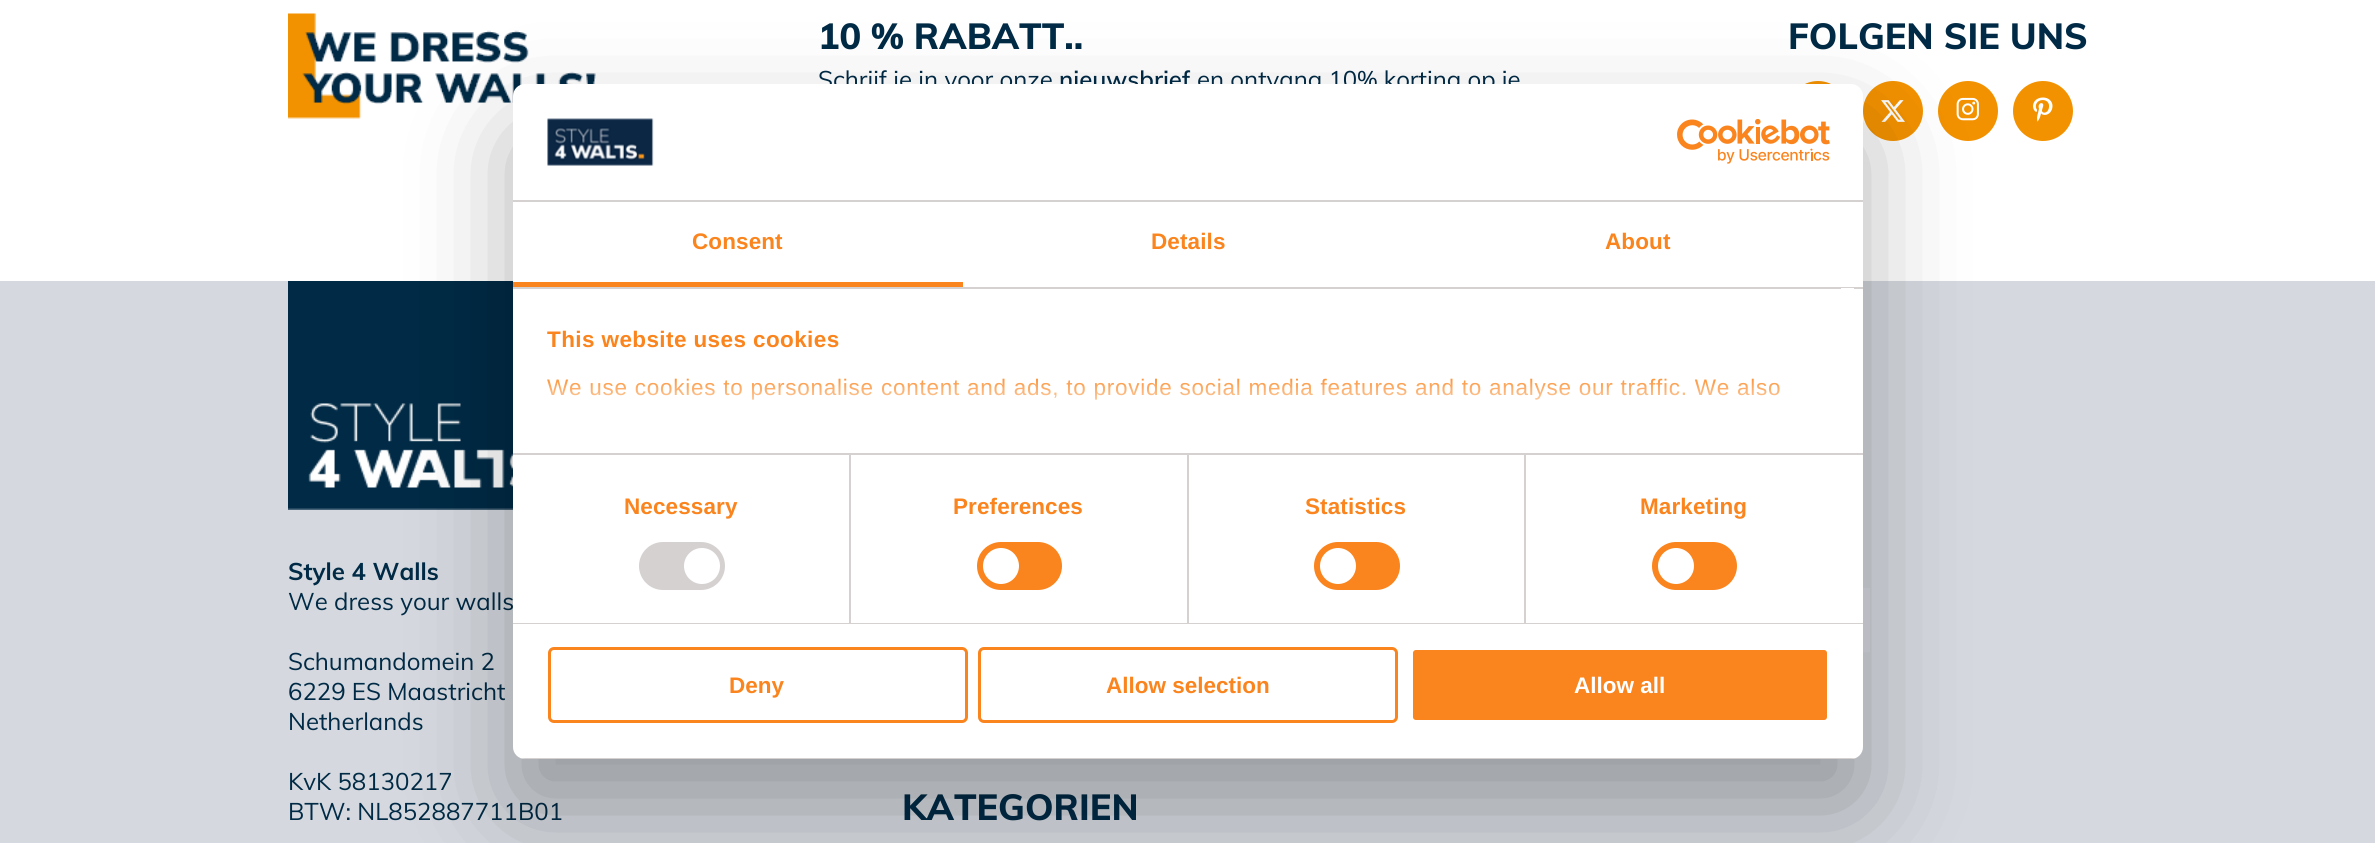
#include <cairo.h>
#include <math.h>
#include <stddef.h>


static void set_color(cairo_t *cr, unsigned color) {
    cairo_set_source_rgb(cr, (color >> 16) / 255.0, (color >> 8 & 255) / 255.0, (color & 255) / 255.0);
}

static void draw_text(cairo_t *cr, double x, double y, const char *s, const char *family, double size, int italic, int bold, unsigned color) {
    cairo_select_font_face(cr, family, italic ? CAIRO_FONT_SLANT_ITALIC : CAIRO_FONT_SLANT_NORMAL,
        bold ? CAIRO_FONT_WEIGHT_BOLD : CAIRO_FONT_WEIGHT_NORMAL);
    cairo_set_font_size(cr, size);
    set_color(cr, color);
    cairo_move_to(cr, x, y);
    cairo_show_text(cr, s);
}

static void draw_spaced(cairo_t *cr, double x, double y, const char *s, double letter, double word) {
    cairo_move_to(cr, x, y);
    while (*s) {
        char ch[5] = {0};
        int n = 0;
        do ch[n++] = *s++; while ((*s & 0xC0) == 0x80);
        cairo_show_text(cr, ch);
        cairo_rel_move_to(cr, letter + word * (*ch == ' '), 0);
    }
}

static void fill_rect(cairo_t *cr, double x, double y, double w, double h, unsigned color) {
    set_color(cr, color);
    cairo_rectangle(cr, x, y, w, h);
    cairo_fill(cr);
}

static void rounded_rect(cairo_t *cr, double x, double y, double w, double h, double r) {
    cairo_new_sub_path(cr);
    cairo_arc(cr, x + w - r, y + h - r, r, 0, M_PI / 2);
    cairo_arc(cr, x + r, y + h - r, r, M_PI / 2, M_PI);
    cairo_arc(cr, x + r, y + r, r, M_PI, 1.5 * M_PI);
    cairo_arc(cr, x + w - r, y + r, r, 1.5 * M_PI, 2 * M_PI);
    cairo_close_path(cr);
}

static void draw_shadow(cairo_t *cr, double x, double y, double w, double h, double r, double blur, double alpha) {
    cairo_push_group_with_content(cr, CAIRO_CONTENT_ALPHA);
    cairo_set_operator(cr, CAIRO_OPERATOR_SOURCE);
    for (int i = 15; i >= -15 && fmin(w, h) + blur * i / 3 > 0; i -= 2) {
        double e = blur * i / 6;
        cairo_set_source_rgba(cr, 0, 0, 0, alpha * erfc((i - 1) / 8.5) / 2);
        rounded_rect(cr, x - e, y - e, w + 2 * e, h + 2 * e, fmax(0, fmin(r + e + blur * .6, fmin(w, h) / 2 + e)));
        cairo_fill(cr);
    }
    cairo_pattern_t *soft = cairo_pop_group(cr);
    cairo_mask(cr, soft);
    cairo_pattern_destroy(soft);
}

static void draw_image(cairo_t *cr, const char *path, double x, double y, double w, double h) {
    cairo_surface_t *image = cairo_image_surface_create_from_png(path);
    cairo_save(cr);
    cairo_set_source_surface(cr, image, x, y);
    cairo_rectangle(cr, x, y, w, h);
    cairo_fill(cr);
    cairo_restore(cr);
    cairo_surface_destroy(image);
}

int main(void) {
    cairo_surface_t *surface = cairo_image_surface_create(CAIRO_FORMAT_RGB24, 2375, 843);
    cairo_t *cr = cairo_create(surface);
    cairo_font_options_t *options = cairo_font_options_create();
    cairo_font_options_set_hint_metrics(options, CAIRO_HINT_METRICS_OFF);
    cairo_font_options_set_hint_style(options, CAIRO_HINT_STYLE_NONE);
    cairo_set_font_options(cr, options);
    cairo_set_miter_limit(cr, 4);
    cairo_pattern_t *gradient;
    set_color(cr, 0xD5D9DF);
    cairo_paint(cr);
    fill_rect(cr, 0, 0, 2375, 281, 0xFFFFFF);
    draw_image(cr, "assets/img1.png", 288, 13, 308, 106);
    draw_text(cr, 818, 49, "10 % RABATT..", "Muli ExtraBold", 36, 0, 0, 0x002A45);
    draw_text(cr, 818, 88, "Schrijf je in voor onze", "Muli", 24, 0, 0, 0x002A45);
    draw_text(cr, 1059, 88, "nieuwsbrief", "Muli SemiBold", 24, 0, 0, 0x002A45);
    draw_text(cr, 1197, 88, "en ontvang 10% korting op je", "Muli", 24, 0, 0, 0x002A45);
    draw_text(cr, 1788, 49, "FOLGEN SIE UNS", "Muli ExtraBold", 36, 0, 0, 0x002A45);
    set_color(cr, 0xF39200);
    cairo_new_path(cr);
    cairo_arc(cr, 1818, 111, 30, 0, 2 * M_PI);
    cairo_fill(cr);
    cairo_arc(cr, 1893, 111, 30, 0, 2 * M_PI);
    cairo_fill(cr);
    draw_image(cr, "assets/img2.png", 1881, 100, 24, 22);
    cairo_arc(cr, 1968, 111, 30, 0, 2 * M_PI);
    cairo_fill(cr);
    draw_image(cr, "assets/img3.png", 1956, 97, 23, 24);
    cairo_arc(cr, 2043, 111, 30, 0, 2 * M_PI);
    cairo_fill(cr);
    draw_image(cr, "assets/img4.png", 2033, 97, 20, 25);
    draw_image(cr, "assets/img5.png", 288, 281, 225, 229);
    draw_text(cr, 288, 580, "Style 4 Walls", "Muli", 24, 0, 1, 0x002A45);
    draw_text(cr, 288, 610, "We dress your walls", "Muli", 24, 0, 0, 0x002A45);
    draw_text(cr, 288, 670, "Schumandomein 2", "Muli", 24, 0, 0, 0x002A45);
    draw_text(cr, 288, 700, "6229 ES Maastricht", "Muli", 24, 0, 0, 0x002A45);
    draw_text(cr, 288, 730, "Netherlands", "Muli", 24, 0, 0, 0x002A45);
    draw_text(cr, 288, 790, "KvK 58130217", "Muli", 24, 0, 0, 0x002A45);
    draw_text(cr, 288, 820, "BTW: NL852887711B01", "Muli", 24, 0, 0, 0x002A45);
    draw_image(cr, "assets/img6.png", 1863, 588, 7, 65);
    draw_text(cr, 902, 820, "KATEGORIEN", "Muli ExtraBold", 36, 0, 0, 0x002A45);
    set_color(cr, 0x000000);
    draw_shadow(cr, 513, 132, 1350, 675, 12, 51, 0.3);
    set_color(cr, 0xFFFFFF);
    rounded_rect(cr, 513, 84, 1350, 675, 12);
    cairo_fill(cr);
    fill_rect(cr, 513, 200, 1350, 2, 0xD6D1D1);
    draw_image(cr, "assets/img7.png", 547, 118, 107, 48);
    draw_image(cr, "assets/img8.png", 1677, 119, 153, 45);
    fill_rect(cr, 513, 287, 1350, 2, 0xD6D1D1);
    fill_rect(cr, 513, 282, 450, 5, 0xFA841D);
    cairo_select_font_face(cr, "Liberation Sans", CAIRO_FONT_SLANT_NORMAL, CAIRO_FONT_WEIGHT_BOLD);
    cairo_set_font_size(cr, 22.5);
    draw_spaced(cr, 692, 249, "Consent", 0.1, 0);
    draw_spaced(cr, 1151, 249, "Details", 0.1, 0);
    draw_spaced(cr, 1605, 249, "About", 0.1, 0);
    fill_rect(cr, 513, 453, 1350, 2, 0xD6D1D1);
    fill_rect(cr, 1841, 288, 13, 1, 0xFFFFFF);
    set_color(cr, 0xFA841D);
    draw_spaced(cr, 547, 347, "This website uses cookies", 0.4, 0);
    cairo_select_font_face(cr, "Liberation Sans", CAIRO_FONT_SLANT_NORMAL, CAIRO_FONT_WEIGHT_NORMAL);
    draw_spaced(cr, 547, 395, "We use cookies to personalise content and ads, to provide social media features and to analyse our traffic. We also", 0.75, 0);
    gradient = cairo_pattern_create_linear(1173, 453, 1173, 371);
    cairo_pattern_add_color_stop_rgba(gradient, 0, 1, 1, 1, 1);
    cairo_pattern_add_color_stop_rgba(gradient, 0.5, 1, 1, 1, 0.8);
    cairo_pattern_add_color_stop_rgba(gradient, 1, 1, 1, 1, 0);
    cairo_set_source(cr, gradient);
    cairo_pattern_destroy(gradient);
    cairo_rectangle(cr, 547, 378, 1233, 22);
    cairo_fill(cr);
    fill_rect(cr, 513, 623, 1350, 1, 0xD6D1D1);
    fill_rect(cr, 849, 455, 2, 168, 0xD6D1D1);
    cairo_select_font_face(cr, "Liberation Sans", CAIRO_FONT_SLANT_NORMAL, CAIRO_FONT_WEIGHT_BOLD);
    set_color(cr, 0xFA841D);
    draw_spaced(cr, 624, 514, "Necessary", 0.1, 0);
    set_color(cr, 0xD6D1D1);
    rounded_rect(cr, 639, 542, 86, 48, 24);
    cairo_fill(cr);
    set_color(cr, 0xFFFFFF);
    cairo_arc(cr, 702, 566, 18, 0, 2 * M_PI);
    cairo_fill(cr);
    fill_rect(cr, 1187, 455, 2, 168, 0xD6D1D1);
    set_color(cr, 0xFA841D);
    draw_spaced(cr, 953, 514, "Preferences", 0.1, 0);
    rounded_rect(cr, 977, 542, 85, 48, 24);
    cairo_fill(cr);
    set_color(cr, 0xFFFFFF);
    cairo_arc(cr, 1001, 566, 18, 0, 2 * M_PI);
    cairo_fill(cr);
    fill_rect(cr, 1524, 455, 2, 168, 0xD6D1D1);
    set_color(cr, 0xFA841D);
    draw_spaced(cr, 1305, 514, "Statistics", 0.1, 0);
    rounded_rect(cr, 1314, 542, 86, 48, 24);
    cairo_fill(cr);
    set_color(cr, 0xFFFFFF);
    cairo_arc(cr, 1338, 566, 18, 0, 2 * M_PI);
    cairo_fill(cr);
    set_color(cr, 0xFA841D);
    draw_spaced(cr, 1640, 514, "Marketing", 0.1, 0);
    rounded_rect(cr, 1652, 542, 85, 48, 24);
    cairo_fill(cr);
    set_color(cr, 0xFFFFFF);
    cairo_arc(cr, 1676, 566, 18, 0, 2 * M_PI);
    cairo_fill(cr);
    cairo_save(cr);
    rounded_rect(cr, 513, 84, 1350, 675, 12);
    cairo_clip(cr);
    fill_rect(cr, 513, 758, 1350, 1, 0xD6D1D1);
    cairo_restore(cr);
    rounded_rect(cr, 549.5, 648.5, 417, 73, 4.5);
    set_color(cr, 0xFA841D);
    cairo_set_line_width(cr, 3);
    cairo_stroke(cr);
    draw_text(cr, 729, 693, "Deny", "Liberation Sans", 22.5, 0, 1, 0xFA841D);
    rounded_rect(cr, 979.5, 648.5, 417, 73, 4.5);
    cairo_stroke(cr);
    draw_text(cr, 1106, 693, "Allow selection", "Liberation Sans", 22.5, 0, 1, 0xFA841D);
    rounded_rect(cr, 1411.5, 648.5, 417, 73, 4.5);
    cairo_fill_preserve(cr);
    set_color(cr, 0xFFFFFF);
    cairo_stroke(cr);
    draw_text(cr, 1574, 693, "Allow all", "Liberation Sans", 22.5, 0, 1, 0xFFFFFF);
    cairo_surface_write_to_png(surface, "output.png");
    cairo_font_options_destroy(options);
    cairo_destroy(cr);
    cairo_surface_destroy(surface);
    return 0;
}
